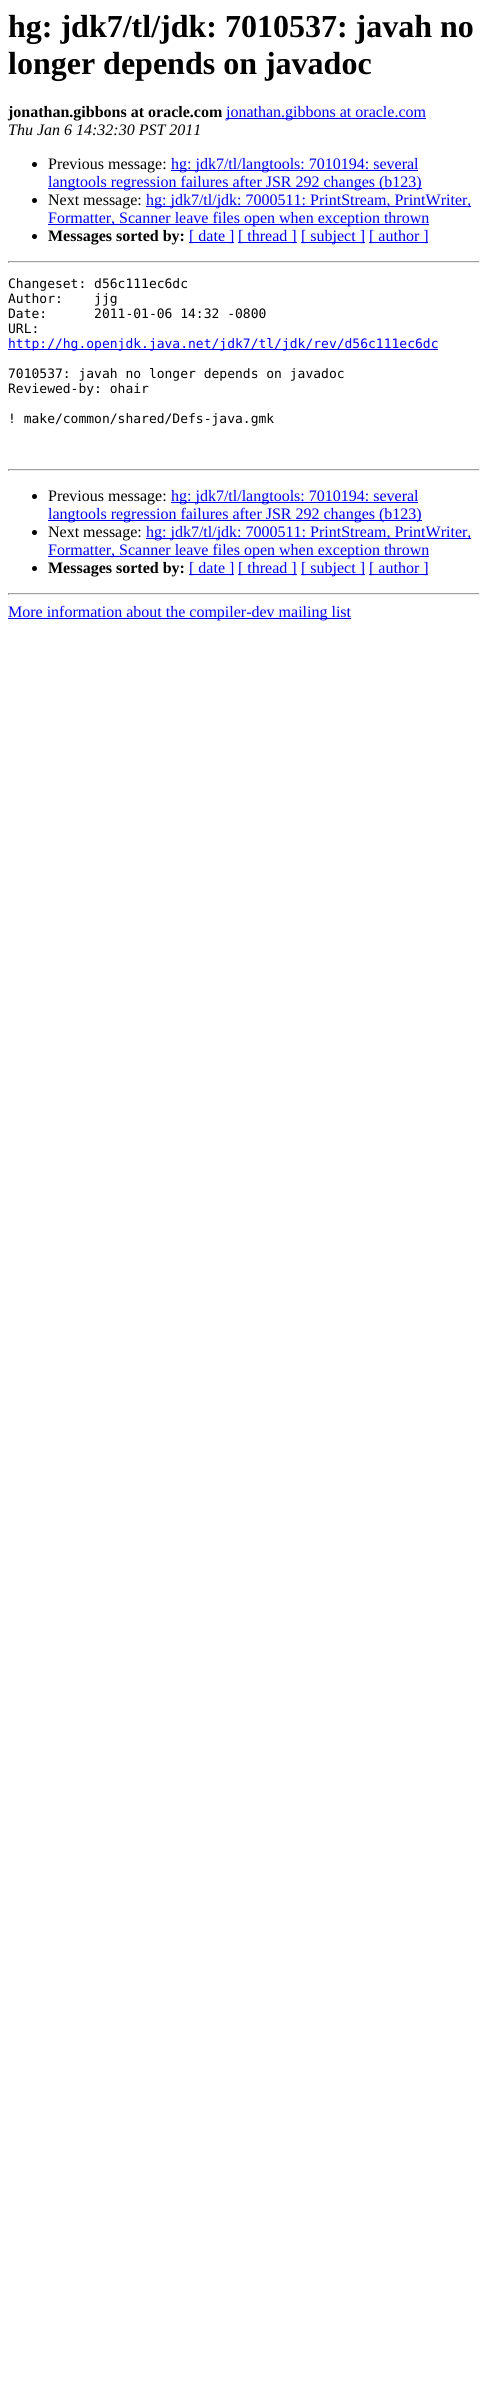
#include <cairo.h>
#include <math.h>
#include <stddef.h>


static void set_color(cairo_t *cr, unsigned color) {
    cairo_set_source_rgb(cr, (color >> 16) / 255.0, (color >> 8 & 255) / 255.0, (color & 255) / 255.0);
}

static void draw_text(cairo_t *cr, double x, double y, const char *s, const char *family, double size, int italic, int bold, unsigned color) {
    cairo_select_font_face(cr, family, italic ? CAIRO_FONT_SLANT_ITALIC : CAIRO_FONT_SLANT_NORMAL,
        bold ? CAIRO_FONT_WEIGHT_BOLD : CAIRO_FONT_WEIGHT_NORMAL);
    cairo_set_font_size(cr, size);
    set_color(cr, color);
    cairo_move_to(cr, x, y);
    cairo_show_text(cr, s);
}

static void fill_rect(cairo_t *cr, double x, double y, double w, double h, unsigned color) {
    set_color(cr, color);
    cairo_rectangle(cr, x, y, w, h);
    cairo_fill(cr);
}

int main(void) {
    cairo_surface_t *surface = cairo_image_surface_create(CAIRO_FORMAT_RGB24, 488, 2404);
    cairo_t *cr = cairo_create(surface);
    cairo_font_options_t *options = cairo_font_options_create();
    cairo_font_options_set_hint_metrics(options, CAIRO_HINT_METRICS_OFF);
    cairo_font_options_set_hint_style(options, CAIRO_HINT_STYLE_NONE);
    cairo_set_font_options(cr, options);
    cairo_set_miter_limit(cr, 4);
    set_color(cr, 0xFFFFFF);
    cairo_paint(cr);
    draw_text(cr, 8, 37, "hg: jdk7/tl/jdk: 7010537: javah no", "Liberation Serif", 32, 0, 1, 0x000000);
    draw_text(cr, 8, 74, "longer depends on javadoc", "Liberation Serif", 32, 0, 1, 0x000000);
    draw_text(cr, 8, 117, "jonathan.gibbons at oracle.com", "Liberation Serif", 16, 0, 1, 0x000000);
    fill_rect(cr, 226, 118, 200, 1, 0x0000EE);
    draw_text(cr, 226, 117, "jonathan.gibbons at oracle.com", "Liberation Serif", 16, 0, 0, 0x0000EE);
    draw_text(cr, 8, 135, "Thu Jan 6 14:32:30 PST 2011", "Liberation Serif", 16, 1, 0, 0x000000);
    cairo_new_path(cr);
    cairo_arc(cr, 34.5, 164.5, 2.5, 0, 2 * M_PI);
    cairo_fill(cr);
    draw_text(cr, 48, 169, "Previous message:", "Liberation Serif", 16, 0, 0, 0x000000);
    fill_rect(cr, 171, 170, 247, 1, 0x0000EE);
    draw_text(cr, 171, 169, "hg: jdk7/tl/langtools: 7010194: several", "Liberation Serif", 16, 0, 0, 0x0000EE);
    fill_rect(cr, 48, 188, 374, 1, 0x0000EE);
    draw_text(cr, 48, 187, "langtools regression failures after JSR 292 changes (b123)", "Liberation Serif", 16, 0, 0, 0x0000EE);
    set_color(cr, 0x000000);
    cairo_new_path(cr);
    cairo_arc(cr, 34.5, 200.5, 2.5, 0, 2 * M_PI);
    cairo_fill(cr);
    draw_text(cr, 48, 205, "Next message:", "Liberation Serif", 16, 0, 0, 0x000000);
    fill_rect(cr, 146, 206, 325, 1, 0x0000EE);
    draw_text(cr, 146, 205, "hg: jdk7/tl/jdk: 7000511: PrintStream, PrintWriter,", "Liberation Serif", 16, 0, 0, 0x0000EE);
    fill_rect(cr, 48, 224, 381, 1, 0x0000EE);
    draw_text(cr, 48, 223, "Formatter, Scanner leave files open when exception thrown", "Liberation Serif", 16, 0, 0, 0x0000EE);
    set_color(cr, 0x000000);
    cairo_new_path(cr);
    cairo_arc(cr, 34.5, 236.5, 2.5, 0, 2 * M_PI);
    cairo_fill(cr);
    draw_text(cr, 48, 241, "Messages sorted by:", "Liberation Serif", 16, 0, 1, 0x000000);
    fill_rect(cr, 189, 242, 45, 1, 0x0000EE);
    draw_text(cr, 189, 241, "[ date ]", "Liberation Serif", 16, 0, 0, 0x0000EE);
    fill_rect(cr, 238, 242, 59, 1, 0x0000EE);
    draw_text(cr, 238, 241, "[ thread ]", "Liberation Serif", 16, 0, 0, 0x0000EE);
    fill_rect(cr, 301, 242, 64, 1, 0x0000EE);
    draw_text(cr, 301, 241, "[ subject ]", "Liberation Serif", 16, 0, 0, 0x0000EE);
    fill_rect(cr, 369, 242, 59, 1, 0x0000EE);
    draw_text(cr, 369, 241, "[ author ]", "Liberation Serif", 16, 0, 0, 0x0000EE);
    fill_rect(cr, 8, 261, 472, 1, 0x9F9F9F);
    fill_rect(cr, 479, 261, 1, 2, 0xEEEEEE);
    fill_rect(cr, 8, 262, 472, 1, 0xEEEEEE);
    fill_rect(cr, 8, 261, 1, 2, 0x9F9F9F);
    draw_text(cr, 8, 288, "Changeset: d56c111ec6dc", "DejaVu Sans Mono", 13, 0, 0, 0x000000);
    draw_text(cr, 8, 303, "Author:    jjg", "DejaVu Sans Mono", 13, 0, 0, 0x000000);
    draw_text(cr, 8, 318, "Date:      2011-01-06 14:32 -0800", "DejaVu Sans Mono", 13, 0, 0, 0x000000);
    draw_text(cr, 8, 333, "URL:", "DejaVu Sans Mono", 13, 0, 0, 0x000000);
    fill_rect(cr, 8, 349, 430, 1, 0x0000EE);
    draw_text(cr, 8, 348, "http://hg.openjdk.java.net/jdk7/tl/jdk/rev/d56c111ec6dc", "DejaVu Sans Mono", 13, 0, 0, 0x0000EE);
    draw_text(cr, 8, 378, "7010537: javah no longer depends on javadoc", "DejaVu Sans Mono", 13, 0, 0, 0x000000);
    draw_text(cr, 8, 393, "Reviewed-by: ohair", "DejaVu Sans Mono", 13, 0, 0, 0x000000);
    draw_text(cr, 8, 423, "! make/common/shared/Defs-java.gmk", "DejaVu Sans Mono", 13, 0, 0, 0x000000);
    fill_rect(cr, 8, 469, 472, 1, 0x9F9F9F);
    fill_rect(cr, 479, 469, 1, 2, 0xEEEEEE);
    fill_rect(cr, 8, 470, 472, 1, 0xEEEEEE);
    fill_rect(cr, 8, 469, 1, 2, 0x9F9F9F);
    set_color(cr, 0x000000);
    cairo_new_path(cr);
    cairo_arc(cr, 34.5, 496.5, 2.5, 0, 2 * M_PI);
    cairo_fill(cr);
    draw_text(cr, 48, 501, "Previous message:", "Liberation Serif", 16, 0, 0, 0x000000);
    fill_rect(cr, 171, 502, 247, 1, 0x0000EE);
    draw_text(cr, 171, 501, "hg: jdk7/tl/langtools: 7010194: several", "Liberation Serif", 16, 0, 0, 0x0000EE);
    fill_rect(cr, 48, 520, 374, 1, 0x0000EE);
    draw_text(cr, 48, 519, "langtools regression failures after JSR 292 changes (b123)", "Liberation Serif", 16, 0, 0, 0x0000EE);
    set_color(cr, 0x000000);
    cairo_new_path(cr);
    cairo_arc(cr, 34.5, 532.5, 2.5, 0, 2 * M_PI);
    cairo_fill(cr);
    draw_text(cr, 48, 537, "Next message:", "Liberation Serif", 16, 0, 0, 0x000000);
    fill_rect(cr, 146, 538, 325, 1, 0x0000EE);
    draw_text(cr, 146, 537, "hg: jdk7/tl/jdk: 7000511: PrintStream, PrintWriter,", "Liberation Serif", 16, 0, 0, 0x0000EE);
    fill_rect(cr, 48, 556, 381, 1, 0x0000EE);
    draw_text(cr, 48, 555, "Formatter, Scanner leave files open when exception thrown", "Liberation Serif", 16, 0, 0, 0x0000EE);
    set_color(cr, 0x000000);
    cairo_new_path(cr);
    cairo_arc(cr, 34.5, 568.5, 2.5, 0, 2 * M_PI);
    cairo_fill(cr);
    draw_text(cr, 48, 573, "Messages sorted by:", "Liberation Serif", 16, 0, 1, 0x000000);
    fill_rect(cr, 189, 574, 45, 1, 0x0000EE);
    draw_text(cr, 189, 573, "[ date ]", "Liberation Serif", 16, 0, 0, 0x0000EE);
    fill_rect(cr, 238, 574, 59, 1, 0x0000EE);
    draw_text(cr, 238, 573, "[ thread ]", "Liberation Serif", 16, 0, 0, 0x0000EE);
    fill_rect(cr, 301, 574, 64, 1, 0x0000EE);
    draw_text(cr, 301, 573, "[ subject ]", "Liberation Serif", 16, 0, 0, 0x0000EE);
    fill_rect(cr, 369, 574, 59, 1, 0x0000EE);
    draw_text(cr, 369, 573, "[ author ]", "Liberation Serif", 16, 0, 0, 0x0000EE);
    fill_rect(cr, 8, 593, 472, 1, 0x9F9F9F);
    fill_rect(cr, 479, 593, 1, 2, 0xEEEEEE);
    fill_rect(cr, 8, 594, 472, 1, 0xEEEEEE);
    fill_rect(cr, 8, 593, 1, 2, 0x9F9F9F);
    fill_rect(cr, 8, 618, 343, 1, 0x0000EE);
    draw_text(cr, 8, 617, "More information about the compiler-dev mailing list", "Liberation Serif", 16, 0, 0, 0x0000EE);
    cairo_surface_write_to_png(surface, "output.png");
    cairo_font_options_destroy(options);
    cairo_destroy(cr);
    cairo_surface_destroy(surface);
    return 0;
}
